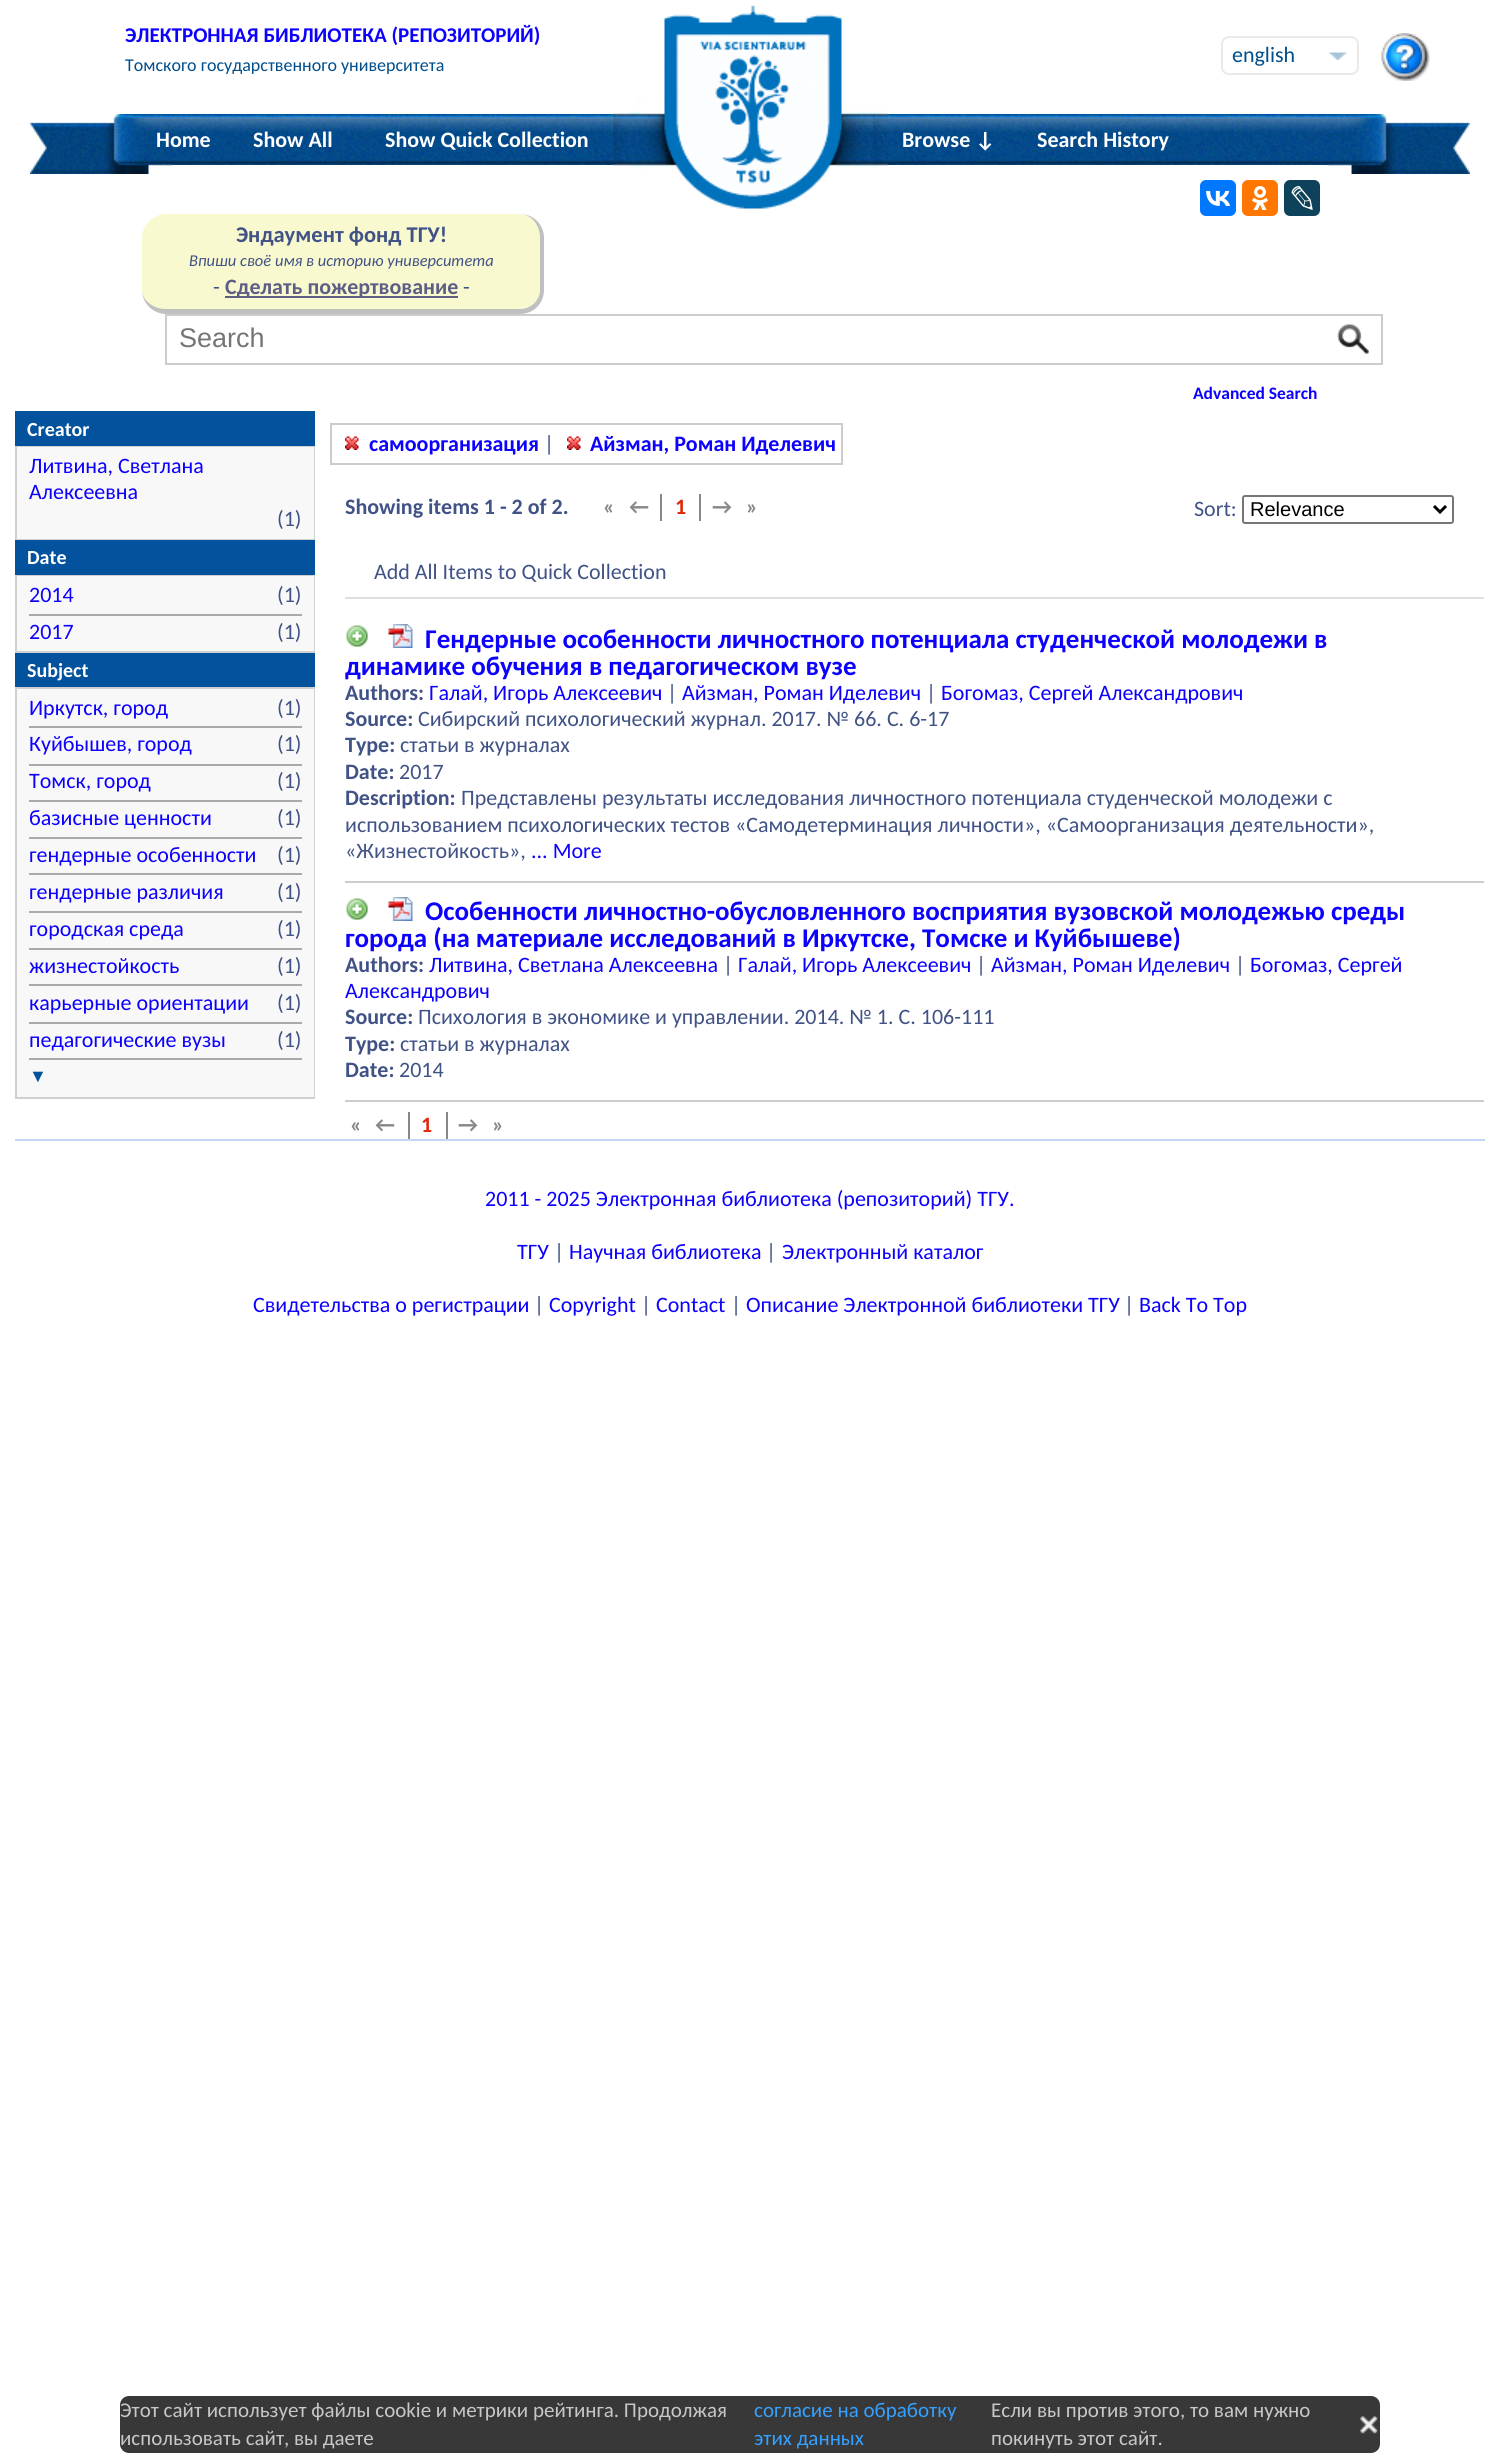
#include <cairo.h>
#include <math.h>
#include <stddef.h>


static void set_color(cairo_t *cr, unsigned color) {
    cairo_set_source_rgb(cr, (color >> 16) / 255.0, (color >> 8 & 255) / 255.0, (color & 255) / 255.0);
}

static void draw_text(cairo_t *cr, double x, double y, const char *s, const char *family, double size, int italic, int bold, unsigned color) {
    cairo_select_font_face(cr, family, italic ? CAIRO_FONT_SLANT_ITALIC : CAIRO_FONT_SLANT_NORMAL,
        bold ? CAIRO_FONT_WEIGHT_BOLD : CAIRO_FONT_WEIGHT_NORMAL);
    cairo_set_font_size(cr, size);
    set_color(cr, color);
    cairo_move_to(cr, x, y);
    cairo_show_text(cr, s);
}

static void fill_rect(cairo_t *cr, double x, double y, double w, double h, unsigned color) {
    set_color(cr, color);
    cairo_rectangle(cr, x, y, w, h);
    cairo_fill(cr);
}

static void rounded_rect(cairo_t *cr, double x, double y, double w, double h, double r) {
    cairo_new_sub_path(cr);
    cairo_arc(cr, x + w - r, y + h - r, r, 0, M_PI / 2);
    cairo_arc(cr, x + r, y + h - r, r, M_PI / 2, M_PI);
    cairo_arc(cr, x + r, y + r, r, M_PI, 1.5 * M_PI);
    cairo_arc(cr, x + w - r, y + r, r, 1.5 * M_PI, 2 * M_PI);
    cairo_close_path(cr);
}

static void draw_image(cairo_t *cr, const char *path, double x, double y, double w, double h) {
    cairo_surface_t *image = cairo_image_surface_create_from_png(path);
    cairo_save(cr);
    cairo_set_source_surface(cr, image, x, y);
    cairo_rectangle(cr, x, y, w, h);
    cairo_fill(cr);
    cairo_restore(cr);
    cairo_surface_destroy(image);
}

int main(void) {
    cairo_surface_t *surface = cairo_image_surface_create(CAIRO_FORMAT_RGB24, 1499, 2462);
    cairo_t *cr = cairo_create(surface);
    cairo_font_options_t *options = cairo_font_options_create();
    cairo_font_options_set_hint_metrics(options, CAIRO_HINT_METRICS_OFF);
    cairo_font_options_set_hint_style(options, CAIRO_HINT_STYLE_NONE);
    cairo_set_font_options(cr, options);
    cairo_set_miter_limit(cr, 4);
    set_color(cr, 0xFFFFFF);
    cairo_paint(cr);
    draw_text(cr, 125, 42, "ЭЛЕКТРОННАЯ БИБЛИОТЕКА (РЕПОЗИТОРИЙ)", "Carlito", 21, 0, 1, 0x0C00FF);
    draw_text(cr, 125, 71, "Томского государственного университета", "Carlito", 18, 0, 0, 0x004E8B);
    rounded_rect(cr, 1222, 37, 136, 37, 7);
    set_color(cr, 0xEBE9E9);
    cairo_stroke(cr);
    draw_image(cr, "assets/img1.png", 1329, 52, 18, 8);
    draw_text(cr, 1232, 62, "english", "Carlito", 22, 0, 0, 0x004E8B);
    draw_image(cr, "assets/img2.png", 1381, 33, 49, 48);
    draw_image(cr, "assets/img4.png", 172, 114, 1156, 51);
    draw_image(cr, "assets/img3.png", 30, 114, 143, 60);
    draw_text(cr, 156, 147, "Home", "Carlito", 22, 0, 1, 0xFFFFFF);
    draw_text(cr, 253, 147, "Show All", "Carlito", 22, 0, 1, 0xFFFFFF);
    draw_text(cr, 385, 147, "Show Quick Collection", "Carlito", 22, 0, 1, 0xFFFFFF);
    draw_image(cr, "assets/img5.png", 613, 5, 275, 204);
    draw_text(cr, 902, 147, "Browse ↓", "Carlito", 22, 0, 1, 0xFFFFFF);
    draw_text(cr, 1037, 147, "Search History", "Carlito", 22, 0, 1, 0xFFFFFF);
    draw_image(cr, "assets/img6.png", 1327, 114, 143, 60);
    set_color(cr, 0xF9F9D0);
    cairo_new_path(cr);
    cairo_move_to(cr, 166, 214);
    cairo_line_to(cr, 520, 214);
    cairo_curve_to(cr, 531, 214, 540, 225, 540, 238);
    cairo_line_to(cr, 540, 290);
    cairo_curve_to(cr, 540, 300, 531, 309, 520, 309);
    cairo_line_to(cr, 166, 309);
    cairo_curve_to(cr, 153, 309, 142, 300, 142, 290);
    cairo_line_to(cr, 142, 238);
    cairo_curve_to(cr, 142, 225, 153, 214, 166, 214);
    cairo_close_path(cr);
    cairo_fill(cr);
    set_color(cr, 0xC0C0C0);
    cairo_set_fill_rule(cr, CAIRO_FILL_RULE_EVEN_ODD);
    cairo_new_path(cr);
    cairo_move_to(cr, 166, 214);
    cairo_line_to(cr, 520, 214);
    cairo_curve_to(cr, 534, 214, 544, 225, 544, 238);
    cairo_line_to(cr, 544, 290);
    cairo_curve_to(cr, 544, 303, 534, 314, 520, 314);
    cairo_line_to(cr, 166, 314);
    cairo_curve_to(cr, 153, 314, 142, 303, 142, 290);
    cairo_line_to(cr, 142, 238);
    cairo_curve_to(cr, 142, 225, 153, 214, 166, 214);
    cairo_close_path(cr);
    cairo_move_to(cr, 166, 214);
    cairo_line_to(cr, 520, 214);
    cairo_curve_to(cr, 531, 214, 540, 225, 540, 238);
    cairo_line_to(cr, 540, 290);
    cairo_curve_to(cr, 540, 300, 531, 309, 520, 309);
    cairo_line_to(cr, 166, 309);
    cairo_curve_to(cr, 153, 309, 142, 300, 142, 290);
    cairo_line_to(cr, 142, 238);
    cairo_curve_to(cr, 142, 225, 153, 214, 166, 214);
    cairo_close_path(cr);
    cairo_fill(cr);
    draw_text(cr, 236, 242, "Эндаумент фонд ТГУ!", "Carlito", 22.5, 0, 1, 0x405286);
    draw_text(cr, 189, 266, "Впиши своё имя в историю университета", "Carlito", 16.5, 1, 0, 0x405286);
    draw_text(cr, 213, 294, "-", "Carlito", 22, 0, 0, 0x405286);
    fill_rect(cr, 225, 296, 233, 2, 0x5D5D86);
    draw_text(cr, 225, 294, "Сделать пожертвование", "Carlito", 22, 0, 1, 0x5D5D86);
    draw_text(cr, 463, 294, "-", "Carlito", 22, 0, 0, 0x405286);
    cairo_rectangle(cr, 166, 315, 1216, 49);
    set_color(cr, 0xCCCCCC);
    cairo_stroke(cr);
    draw_text(cr, 179, 347, "Search", "Liberation Sans", 27, 0, 0, 0x757575);
    draw_image(cr, "assets/img7.png", 1337, 323, 32, 31);
    draw_text(cr, 1193, 399, "Advanced Search", "Carlito", 17.5, 0, 1, 0x0C00FF);
    fill_rect(cr, 15, 539, 300, 1, 0xD0D0D0);
    fill_rect(cr, 15, 411, 300, 35, 0x02529D);
    fill_rect(cr, 15, 446, 300, 1, 0xD0D0D0);
    draw_text(cr, 27, 436, "Creator", "Carlito", 20, 0, 1, 0xFFFFFF);
    fill_rect(cr, 17, 447, 297, 92, 0xF8F8F8);
    fill_rect(cr, 314, 447, 1, 92, 0xD0D0D0);
    fill_rect(cr, 15, 447, 2, 92, 0xD0D0D0);
    draw_text(cr, 29, 473, "Литвина, Светлана", "Carlito", 22, 0, 0, 0x0C00FF);
    draw_text(cr, 29, 499, "Алексеевна", "Carlito", 22, 0, 0, 0x0C00FF);
    draw_text(cr, 277, 526, "(1)", "Carlito", 22, 0, 0, 0x405286);
    fill_rect(cr, 15, 651, 300, 2, 0xD0D0D0);
    fill_rect(cr, 15, 540, 300, 35, 0x02529D);
    fill_rect(cr, 15, 575, 300, 1, 0xD0D0D0);
    draw_text(cr, 27, 564, "Date", "Carlito", 20, 0, 1, 0xFFFFFF);
    fill_rect(cr, 17, 576, 297, 75, 0xF8F8F8);
    fill_rect(cr, 314, 576, 1, 75, 0xD0D0D0);
    fill_rect(cr, 15, 576, 2, 75, 0xD0D0D0);
    draw_text(cr, 29, 602, "2014", "Carlito", 22, 0, 0, 0x0C00FF);
    draw_text(cr, 277, 602, "(1)", "Carlito", 22, 0, 0, 0x405286);
    fill_rect(cr, 29, 614, 273, 2, 0xAAAAAA);
    draw_text(cr, 29, 639, "2017", "Carlito", 22, 0, 0, 0x0C00FF);
    draw_text(cr, 277, 639, "(1)", "Carlito", 22, 0, 0, 0x405286);
    fill_rect(cr, 15, 1097, 300, 2, 0xD0D0D0);
    fill_rect(cr, 15, 653, 300, 34, 0x02529D);
    fill_rect(cr, 15, 687, 300, 2, 0xD0D0D0);
    draw_text(cr, 27, 677, "Subject", "Carlito", 20, 0, 1, 0xFFFFFF);
    fill_rect(cr, 17, 689, 297, 408, 0xF8F8F8);
    fill_rect(cr, 314, 689, 1, 408, 0xD0D0D0);
    fill_rect(cr, 15, 689, 2, 408, 0xD0D0D0);
    draw_text(cr, 29, 715, "Иркутск, город", "Carlito", 22, 0, 0, 0x0C00FF);
    draw_text(cr, 277, 715, "(1)", "Carlito", 22, 0, 0, 0x405286);
    fill_rect(cr, 29, 726, 273, 2, 0xAAAAAA);
    draw_text(cr, 29, 751, "Куйбышев, город", "Carlito", 22, 0, 0, 0x0C00FF);
    draw_text(cr, 277, 751, "(1)", "Carlito", 22, 0, 0, 0x405286);
    fill_rect(cr, 29, 764, 273, 2, 0xAAAAAA);
    draw_text(cr, 29, 788, "Томск, город", "Carlito", 22, 0, 0, 0x0C00FF);
    draw_text(cr, 277, 788, "(1)", "Carlito", 22, 0, 0, 0x405286);
    fill_rect(cr, 29, 800, 273, 2, 0xAAAAAA);
    draw_text(cr, 29, 825, "базисные ценности", "Carlito", 22, 0, 0, 0x0C00FF);
    draw_text(cr, 277, 825, "(1)", "Carlito", 22, 0, 0, 0x405286);
    fill_rect(cr, 29, 837, 273, 2, 0xAAAAAA);
    draw_text(cr, 29, 862, "гендерные особенности", "Carlito", 22, 0, 0, 0x0C00FF);
    draw_text(cr, 277, 862, "(1)", "Carlito", 22, 0, 0, 0x405286);
    fill_rect(cr, 29, 873, 273, 2, 0xAAAAAA);
    draw_text(cr, 29, 899, "гендерные различия", "Carlito", 22, 0, 0, 0x0C00FF);
    draw_text(cr, 277, 899, "(1)", "Carlito", 22, 0, 0, 0x405286);
    fill_rect(cr, 29, 911, 273, 2, 0xAAAAAA);
    draw_text(cr, 29, 936, "городская среда", "Carlito", 22, 0, 0, 0x0C00FF);
    draw_text(cr, 277, 936, "(1)", "Carlito", 22, 0, 0, 0x405286);
    fill_rect(cr, 29, 948, 273, 2, 0xAAAAAA);
    draw_text(cr, 29, 973, "жизнестойкость", "Carlito", 22, 0, 0, 0x0C00FF);
    draw_text(cr, 277, 973, "(1)", "Carlito", 22, 0, 0, 0x405286);
    fill_rect(cr, 29, 984, 273, 2, 0xAAAAAA);
    draw_text(cr, 29, 1010, "карьерные ориентации", "Carlito", 22, 0, 0, 0x0C00FF);
    draw_text(cr, 277, 1010, "(1)", "Carlito", 22, 0, 0, 0x405286);
    fill_rect(cr, 29, 1022, 273, 2, 0xAAAAAA);
    draw_text(cr, 29, 1047, "педагогические вузы", "Carlito", 22, 0, 0, 0x0C00FF);
    draw_text(cr, 277, 1047, "(1)", "Carlito", 22, 0, 0, 0x405286);
    fill_rect(cr, 29, 1058, 273, 2, 0xAAAAAA);
    draw_text(cr, 29, 1082, "▼", "Liberation Sans", 18, 0, 1, 0x02529D);
    cairo_rectangle(cr, 331, 424, 511, 40);
    set_color(cr, 0xCCCCCC);
    cairo_stroke(cr);
    draw_image(cr, "assets/img8.png", 345, 436, 14, 14);
    draw_text(cr, 369, 451, "самоорганизация", "Carlito", 22, 0, 1, 0x0C00FF);
    draw_text(cr, 544, 451, "|", "Carlito", 22, 0, 0, 0x405286);
    draw_image(cr, "assets/img8.png", 567, 436, 14, 14);
    draw_text(cr, 590, 451, "Айзман, Роман Иделевич", "Carlito", 22, 0, 1, 0x0C00FF);
    set_color(cr, 0x0077FF);
    rounded_rect(cr, 1200, 180, 36, 36, 6);
    cairo_fill(cr);
    draw_image(cr, "assets/img9.png", 1206, 190, 24, 16);
    set_color(cr, 0xFF7700);
    rounded_rect(cr, 1242, 180, 36, 36, 6);
    cairo_fill(cr);
    draw_image(cr, "assets/img10.png", 1252, 186, 17, 24);
    set_color(cr, 0x0D425A);
    rounded_rect(cr, 1284, 180, 36, 36, 6);
    cairo_fill(cr);
    draw_image(cr, "assets/img11.png", 1291, 186, 22, 24);
    draw_text(cr, 345, 514, "Showing items 1 - 2 of 2.", "Carlito", 22, 0, 1, 0x405286);
    draw_text(cr, 603, 514, "«", "Carlito", 22, 0, 1, 0x888888);
    draw_text(cr, 629, 514, "←", "Carlito", 22, 0, 1, 0x888888);
    fill_rect(cr, 660, 494, 2, 27, 0x888888);
    draw_text(cr, 675, 514, "1", "Carlito", 22, 0, 1, 0xDE290A);
    draw_text(cr, 712, 514, "→", "Carlito", 22, 0, 1, 0x888888);
    fill_rect(cr, 699, 494, 2, 27, 0x888888);
    draw_text(cr, 746, 514, "»", "Carlito", 22, 0, 1, 0x888888);
    draw_text(cr, 1194, 516, "Sort:", "Carlito", 22, 0, 0, 0x405286);
    rounded_rect(cr, 1243, 496, 210, 27, 2);
    set_color(cr, 0x767676);
    cairo_stroke(cr);
    cairo_new_path(cr);
    cairo_move_to(cr, 1434, 506);
    cairo_line_to(cr, 1440, 512);
    cairo_line_to(cr, 1446, 506);
    set_color(cr, 0x000000);
    cairo_set_line_width(cr, 3);
    cairo_stroke(cr);
    draw_text(cr, 1250, 516, "Relevance", "Liberation Sans", 20, 0, 0, 0x000000);
    draw_text(cr, 374, 579, "Add All Items to Quick Collection", "Carlito", 22, 0, 0, 0x405286);
    fill_rect(cr, 345, 597, 1139, 2, 0xE0E0E0);
    fill_rect(cr, 345, 881, 1139, 2, 0xCCCCCC);
    draw_image(cr, "assets/img12.png", 346, 625, 22, 22);
    draw_image(cr, "assets/img13.png", 388, 624, 25, 24);
    draw_text(cr, 425, 648, "Гендерные особенности личностного потенциала студенческой молодежи в", "Carlito", 27, 0, 1, 0x0C00FF);
    draw_text(cr, 345, 675, "динамике обучения в педагогическом вузе", "Carlito", 27, 0, 1, 0x0C00FF);
    draw_text(cr, 345, 700, "Authors:", "Carlito", 22, 0, 1, 0x405286);
    draw_text(cr, 429, 700, "Галай, Игорь Алексеевич", "Carlito", 22, 0, 0, 0x0C00FF);
    draw_text(cr, 667, 700, "|", "Carlito", 22, 0, 0, 0x405286);
    draw_text(cr, 682, 700, "Айзман, Роман Иделевич", "Carlito", 22, 0, 0, 0x0C00FF);
    draw_text(cr, 926, 700, "|", "Carlito", 22, 0, 0, 0x405286);
    draw_text(cr, 941, 700, "Богомаз, Сергей Александрович", "Carlito", 22, 0, 0, 0x0C00FF);
    draw_text(cr, 345, 726, "Source:", "Carlito", 22, 0, 1, 0x405286);
    draw_text(cr, 418, 726, "Сибирский психологический журнал. 2017. № 66. С. 6-17", "Carlito", 22, 0, 0, 0x405286);
    draw_text(cr, 345, 752, "Type:", "Carlito", 22, 0, 1, 0x405286);
    draw_text(cr, 400, 752, "статьи в журналах", "Carlito", 22, 0, 0, 0x405286);
    draw_text(cr, 345, 779, "Date:", "Carlito", 22, 0, 1, 0x405286);
    draw_text(cr, 399, 779, "2017", "Carlito", 22, 0, 0, 0x405286);
    draw_text(cr, 345, 805, "Description:", "Carlito", 22, 0, 1, 0x405286);
    draw_text(cr, 461, 805, "Представлены результаты исследования личностного потенциала студенческой молодежи с", "Carlito", 22, 0, 0, 0x405286);
    draw_text(cr, 345, 832, "использованием психологических тестов «Самодетерминация личности», «Самоорганизация деятельности»,", "Carlito", 22, 0, 0, 0x405286);
    draw_text(cr, 345, 858, "«Жизнестойкость»,", "Carlito", 22, 0, 0, 0x405286);
    draw_text(cr, 531, 858, "... More", "Carlito", 22, 0, 0, 0x0C00FF);
    fill_rect(cr, 345, 1100, 1139, 2, 0xCCCCCC);
    draw_image(cr, "assets/img12.png", 346, 898, 22, 22);
    draw_image(cr, "assets/img13.png", 388, 897, 25, 24);
    draw_text(cr, 425, 920, "Оcобенности личностно-обусловленного восприятия вузовской молодежью среды", "Carlito", 27, 0, 1, 0x0C00FF);
    draw_text(cr, 345, 947, "города (на материале исследований в Иркутске, Томске и Куйбышеве)", "Carlito", 27, 0, 1, 0x0C00FF);
    draw_text(cr, 345, 972, "Authors:", "Carlito", 22, 0, 1, 0x405286);
    draw_text(cr, 429, 972, "Литвина, Светлана Алексеевна", "Carlito", 22, 0, 0, 0x0C00FF);
    draw_text(cr, 723, 972, "|", "Carlito", 22, 0, 0, 0x405286);
    draw_text(cr, 738, 972, "Галай, Игорь Алексеевич", "Carlito", 22, 0, 0, 0x0C00FF);
    draw_text(cr, 976, 972, "|", "Carlito", 22, 0, 0, 0x405286);
    draw_text(cr, 991, 972, "Айзман, Роман Иделевич", "Carlito", 22, 0, 0, 0x0C00FF);
    draw_text(cr, 1235, 972, "|", "Carlito", 22, 0, 0, 0x405286);
    draw_text(cr, 1250, 972, "Богомаз, Сергей", "Carlito", 22, 0, 0, 0x0C00FF);
    draw_text(cr, 345, 998, "Александрович", "Carlito", 22, 0, 0, 0x0C00FF);
    draw_text(cr, 345, 1024, "Source:", "Carlito", 22, 0, 1, 0x405286);
    draw_text(cr, 418, 1024, "Психология в экономике и управлении. 2014. № 1. С. 106-111", "Carlito", 22, 0, 0, 0x405286);
    draw_text(cr, 345, 1051, "Type:", "Carlito", 22, 0, 1, 0x405286);
    draw_text(cr, 400, 1051, "статьи в журналах", "Carlito", 22, 0, 0, 0x405286);
    draw_text(cr, 345, 1077, "Date:", "Carlito", 22, 0, 1, 0x405286);
    draw_text(cr, 399, 1077, "2014", "Carlito", 22, 0, 0, 0x405286);
    draw_text(cr, 350, 1132, "«", "Carlito", 22, 0, 1, 0x888888);
    draw_text(cr, 375, 1132, "←", "Carlito", 22, 0, 1, 0x888888);
    fill_rect(cr, 408, 1112, 2, 27, 0x888888);
    draw_text(cr, 421, 1132, "1", "Carlito", 22, 0, 1, 0xDE290A);
    draw_text(cr, 458, 1132, "→", "Carlito", 22, 0, 1, 0x888888);
    fill_rect(cr, 446, 1112, 2, 27, 0x888888);
    draw_text(cr, 492, 1132, "»", "Carlito", 22, 0, 1, 0x888888);
    fill_rect(cr, 15, 1139, 1470, 2, 0xC5D5F6);
    draw_text(cr, 485, 1206, "2011 - 2025 Электронная библиотека (репозиторий) ТГУ.", "Carlito", 22, 0, 0, 0x0C00FF);
    draw_text(cr, 517, 1259, "ТГУ", "Carlito", 22, 0, 0, 0x0C00FF);
    draw_text(cr, 554, 1259, "|", "Carlito", 22, 0, 0, 0x405286);
    draw_text(cr, 569, 1259, "Научная библиотека", "Carlito", 22, 0, 0, 0x0C00FF);
    draw_text(cr, 766, 1259, "|", "Carlito", 22, 0, 0, 0x405286);
    draw_text(cr, 782, 1259, "Электронный каталог", "Carlito", 22, 0, 0, 0x0C00FF);
    draw_text(cr, 253, 1312, "Свидетельства о регистрации", "Carlito", 22, 0, 0, 0x0C00FF);
    draw_text(cr, 534, 1312, "|", "Carlito", 22, 0, 0, 0x405286);
    draw_text(cr, 549, 1312, "Copyright", "Carlito", 22, 0, 0, 0x0C00FF);
    draw_text(cr, 641, 1312, "|", "Carlito", 22, 0, 0, 0x405286);
    draw_text(cr, 656, 1312, "Contact", "Carlito", 22, 0, 0, 0x0C00FF);
    draw_text(cr, 731, 1312, "|", "Carlito", 22, 0, 0, 0x405286);
    draw_text(cr, 746, 1312, "Описание Электронной библиотеки ТГУ", "Carlito", 22, 0, 0, 0x0C00FF);
    draw_text(cr, 1124, 1312, "|", "Carlito", 22, 0, 0, 0x405286);
    draw_text(cr, 1139, 1312, "Back To Top", "Carlito", 22, 0, 0, 0x0C00FF);
    set_color(cr, 0x383838);
    rounded_rect(cr, 120, 2396, 1260, 57, 9);
    cairo_fill(cr);
    draw_text(cr, 120, 2417, "Этот сайт использует файлы cookie и метрики рейтинга. Продолжая", "Carlito", 21, 0, 0, 0xC7C7C7);
    draw_text(cr, 754, 2417, "согласие на обработку", "Carlito", 21, 0, 0, 0x34A0FF);
    draw_text(cr, 754, 2445, "этих данных", "Carlito", 21, 0, 0, 0x34A0FF);
    draw_text(cr, 991, 2417, "Если вы против этого, то вам нужно", "Carlito", 21, 0, 0, 0xC7C7C7);
    draw_image(cr, "assets/img14.png", 1360, 2416, 18, 18);
    draw_text(cr, 120, 2445, "использовать сайт, вы даете", "Carlito", 21, 0, 0, 0xC7C7C7);
    draw_text(cr, 991, 2445, "покинуть этот сайт.", "Carlito", 21, 0, 0, 0xC7C7C7);
    cairo_surface_write_to_png(surface, "output.png");
    cairo_font_options_destroy(options);
    cairo_destroy(cr);
    cairo_surface_destroy(surface);
    return 0;
}
